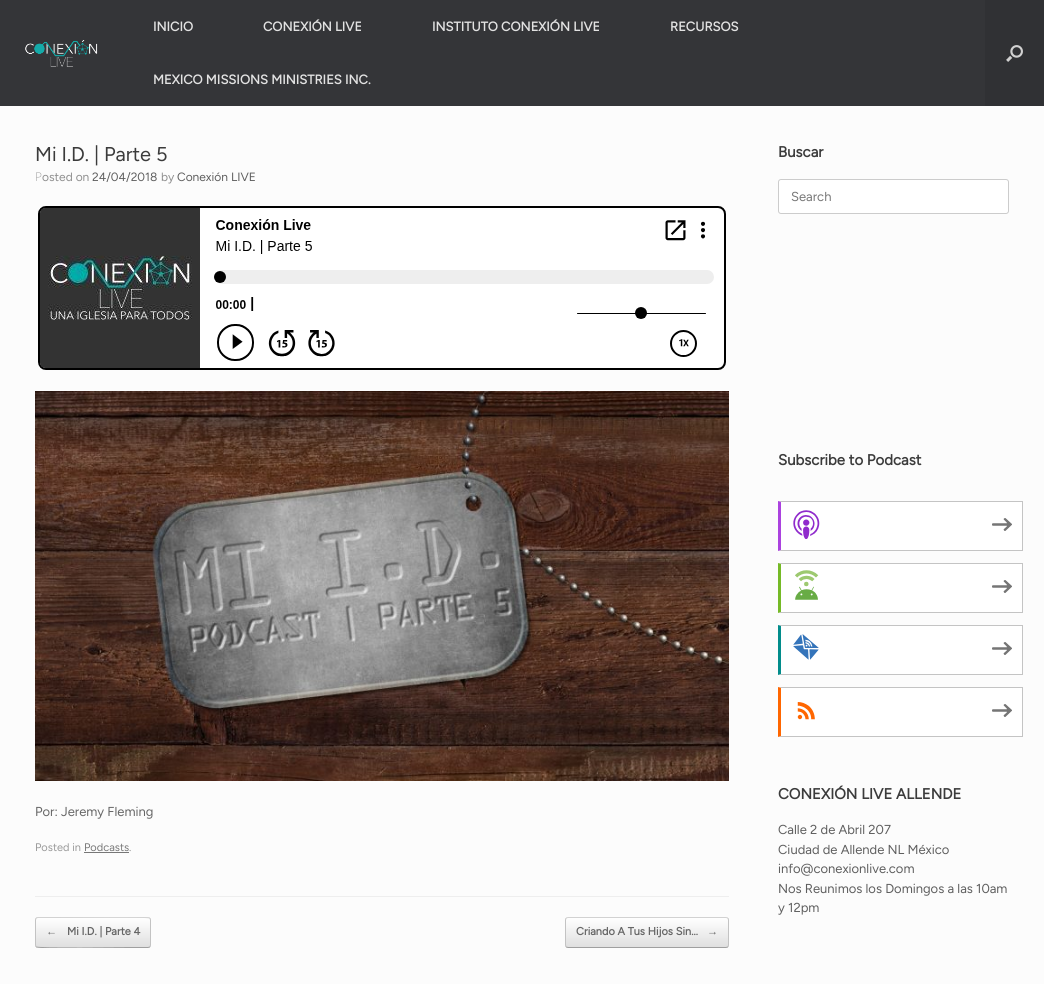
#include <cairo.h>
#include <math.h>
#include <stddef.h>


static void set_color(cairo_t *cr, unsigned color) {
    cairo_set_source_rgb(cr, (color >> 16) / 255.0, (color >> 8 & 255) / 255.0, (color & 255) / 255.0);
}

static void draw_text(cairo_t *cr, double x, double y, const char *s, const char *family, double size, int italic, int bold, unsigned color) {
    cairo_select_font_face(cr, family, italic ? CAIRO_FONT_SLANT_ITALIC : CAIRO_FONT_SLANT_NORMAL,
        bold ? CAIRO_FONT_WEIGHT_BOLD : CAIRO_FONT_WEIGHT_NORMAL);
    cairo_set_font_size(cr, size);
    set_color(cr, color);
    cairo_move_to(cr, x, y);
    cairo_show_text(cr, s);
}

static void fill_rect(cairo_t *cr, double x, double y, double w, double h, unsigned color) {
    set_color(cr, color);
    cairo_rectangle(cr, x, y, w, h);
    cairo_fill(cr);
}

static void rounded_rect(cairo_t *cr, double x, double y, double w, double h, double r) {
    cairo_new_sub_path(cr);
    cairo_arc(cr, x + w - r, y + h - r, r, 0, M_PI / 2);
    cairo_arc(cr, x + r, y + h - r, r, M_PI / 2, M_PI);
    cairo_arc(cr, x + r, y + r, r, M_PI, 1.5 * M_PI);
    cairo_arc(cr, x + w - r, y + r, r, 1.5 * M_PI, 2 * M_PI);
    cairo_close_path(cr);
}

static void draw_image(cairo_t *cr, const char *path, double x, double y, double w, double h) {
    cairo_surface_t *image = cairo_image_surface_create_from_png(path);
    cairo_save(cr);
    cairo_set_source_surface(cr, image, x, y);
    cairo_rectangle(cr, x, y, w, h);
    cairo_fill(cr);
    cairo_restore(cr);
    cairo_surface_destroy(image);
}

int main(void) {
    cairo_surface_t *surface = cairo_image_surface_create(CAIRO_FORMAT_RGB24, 1044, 984);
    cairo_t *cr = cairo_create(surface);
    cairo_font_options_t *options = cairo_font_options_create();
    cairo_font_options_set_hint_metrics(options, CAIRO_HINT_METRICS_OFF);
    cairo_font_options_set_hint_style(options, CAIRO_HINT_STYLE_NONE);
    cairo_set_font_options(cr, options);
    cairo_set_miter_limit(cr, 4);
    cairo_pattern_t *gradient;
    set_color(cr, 0xFCFCFC);
    cairo_paint(cr);
    fill_rect(cr, 0, 0, 985, 106, 0x343538);
    draw_image(cr, "assets/img1.png", 25, 40, 73, 27);
    draw_text(cr, 153, 31, "INICIO", "Figtree", 13, 0, 1, 0xE2E2E2);
    draw_text(cr, 263, 31, "CONEXIÓN LIVE", "Figtree", 13, 0, 1, 0xE2E2E2);
    draw_text(cr, 432, 31, "INSTITUTO CONEXIÓN LIVE", "Figtree", 13, 0, 1, 0xE2E2E2);
    draw_text(cr, 670, 31, "RECURSOS", "Figtree", 13, 0, 1, 0xE2E2E2);
    draw_text(cr, 153, 84, "MEXICO MISSIONS MINISTRIES INC.", "Figtree", 13, 0, 1, 0xE2E2E2);
    fill_rect(cr, 985, 0, 59, 106, 0x303134);
    draw_image(cr, "assets/img2.png", 1006, 45, 17, 17);
    fill_rect(cr, 35, 896, 694, 1, 0xEEEEEE);
    draw_text(cr, 35, 161, "Mi I.D. | Parte 5", "Figtree Light", 20, 0, 0, 0x3B3B3B);
    draw_text(cr, 35, 181, "P", "Noto Sans ExtraLight", 12, 0, 0, 0x8F8F8F);
    draw_text(cr, 42, 181, "osted on", "Figtree Light", 12, 0, 0, 0x8F8F8F);
    draw_text(cr, 92, 181, "24/04/2018", "Figtree Light", 12, 0, 0, 0x5E5E5E);
    draw_text(cr, 161, 181, "by", "Figtree Light", 12, 0, 0, 0x8F8F8F);
    draw_text(cr, 177, 181, "Conexión LIVE", "Figtree Light", 12, 0, 0, 0x5E5E5E);
    draw_image(cr, "assets/img3.png", 38, 206, 688, 164);
    draw_image(cr, "assets/img4.png", 35, 391, 694, 390);
    draw_text(cr, 35, 816, "Por: Jeremy Fleming", "Figtree Light", 13, 0, 0, 0x666666);
    draw_text(cr, 35, 851, "Posted in", "Figtree Light", 11, 0, 0, 0x999999);
    draw_text(cr, 84, 851, "Podcasts", "Figtree Light", 11, 0, 0, 0x777777);
    fill_rect(cr, 84, 852, 45, 1, 0x777777);
    draw_text(cr, 129, 851, ".", "Figtree Light", 11, 0, 0, 0x999999);
    cairo_save(cr);
    rounded_rect(cr, 35, 917, 116, 31, 3);
    cairo_clip(cr);
    gradient = cairo_pattern_create_linear(36, 918, 36, 889);
    cairo_pattern_add_color_stop_rgba(gradient, 0, 0.875, 0.875, 0.875, 1);
    cairo_pattern_add_color_stop_rgba(gradient, 1, 1, 1, 1, 1);
    cairo_set_source(cr, gradient);
    cairo_pattern_destroy(gradient);
    cairo_rectangle(cr, 35, 917, 116, 1);
    cairo_fill(cr);
    gradient = cairo_pattern_create_linear(36, 947, 36, 918);
    cairo_pattern_add_color_stop_rgba(gradient, 0, 0.875, 0.875, 0.875, 1);
    cairo_pattern_add_color_stop_rgba(gradient, 1, 1, 1, 1, 1);
    cairo_set_source(cr, gradient);
    cairo_pattern_destroy(gradient);
    cairo_rectangle(cr, 35, 918, 116, 29);
    cairo_fill(cr);
    cairo_restore(cr);
    cairo_save(cr);
    cairo_rectangle(cr, 35, 917, 694, 31);
    cairo_clip(cr);
    cairo_new_path(cr);
    cairo_move_to(cr, 36, 918);
    cairo_line_to(cr, 38, 917.5);
    cairo_line_to(cr, 56.5, 917.5);
    cairo_curve_to(cr, 65.5, 917.5, 147.5, 916.5, 149.5, 918);
    cairo_line_to(cr, 150, 918);
    set_color(cr, 0xD2D2D2);
    cairo_set_line_width(cr, 1);
    cairo_stroke(cr);
    cairo_restore(cr);
    cairo_new_path(cr);
    cairo_move_to(cr, 150, 918);
    cairo_curve_to(cr, 150, 918.5, 150.5, 919.5, 150.5, 920);
    cairo_line_to(cr, 150.5, 945);
    cairo_curve_to(cr, 150.5, 945.5, 150, 946.5, 150, 947);
    set_color(cr, 0xC3C3C3);
    cairo_set_line_width(cr, 1);
    cairo_stroke(cr);
    cairo_save(cr);
    cairo_rectangle(cr, 35, 917, 694, 31);
    cairo_clip(cr);
    cairo_new_path(cr);
    cairo_move_to(cr, 150, 947);
    cairo_line_to(cr, 148, 947.5);
    cairo_line_to(cr, 129.5, 947.5);
    cairo_curve_to(cr, 120.5, 947.5, 38.5, 948.5, 36.5, 947);
    cairo_line_to(cr, 36, 947);
    set_color(cr, 0x9F9F9F);
    cairo_stroke(cr);
    cairo_restore(cr);
    cairo_new_path(cr);
    cairo_move_to(cr, 36, 947);
    cairo_curve_to(cr, 36, 946.5, 35.5, 945.5, 35.5, 945);
    cairo_line_to(cr, 35.5, 920);
    cairo_curve_to(cr, 35.5, 919.5, 36, 918.5, 36, 918);
    cairo_stroke(cr);
    draw_text(cr, 46, 935, "←", "Liberation Serif", 11, 0, 1, 0x666666);
    draw_text(cr, 67, 935, "Mi I.D. | Parte 4", "Figtree", 11, 0, 1, 0x666666);
    cairo_save(cr);
    rounded_rect(cr, 565, 917, 164, 31, 3);
    cairo_clip(cr);
    gradient = cairo_pattern_create_linear(566, 947, 566, 918);
    cairo_pattern_add_color_stop_rgba(gradient, 0, 0.875, 0.875, 0.875, 1);
    cairo_pattern_add_color_stop_rgba(gradient, 1, 1, 1, 1, 1);
    cairo_set_source(cr, gradient);
    cairo_pattern_destroy(gradient);
    cairo_rectangle(cr, 565, 918, 164, 29);
    cairo_fill(cr);
    cairo_restore(cr);
    cairo_new_path(cr);
    cairo_move_to(cr, 566, 918);
    cairo_line_to(cr, 568, 917.5);
    cairo_line_to(cr, 726, 917.5);
    cairo_line_to(cr, 728, 918);
    set_color(cr, 0xD2D2D2);
    cairo_stroke(cr);
    cairo_new_path(cr);
    cairo_move_to(cr, 728, 918);
    cairo_curve_to(cr, 728, 918.5, 728.5, 919.5, 728.5, 920);
    cairo_line_to(cr, 728.5, 945);
    cairo_curve_to(cr, 728.5, 945.5, 728, 946.5, 728, 947);
    set_color(cr, 0xC3C3C3);
    cairo_stroke(cr);
    cairo_new_path(cr);
    cairo_move_to(cr, 728, 947);
    cairo_line_to(cr, 726, 947.5);
    cairo_line_to(cr, 568, 947.5);
    cairo_line_to(cr, 566, 947);
    set_color(cr, 0x9F9F9F);
    cairo_stroke(cr);
    cairo_new_path(cr);
    cairo_move_to(cr, 566, 947);
    cairo_curve_to(cr, 566, 946.5, 565.5, 945.5, 565.5, 945);
    cairo_line_to(cr, 565.5, 920);
    cairo_curve_to(cr, 565.5, 919.5, 566, 918.5, 566, 918);
    set_color(cr, 0xC3C3C3);
    cairo_stroke(cr);
    draw_text(cr, 576, 935, "Criando A Tus Hijos Sin…", "Figtree", 11, 0, 1, 0x666666);
    draw_text(cr, 707, 935, "→", "Liberation Serif", 11, 0, 1, 0x666666);
    draw_text(cr, 778, 157, "Buscar", "Figtree", 15, 0, 1, 0x3B3B3B);
    set_color(cr, 0xFFFFFF);
    rounded_rect(cr, 778.5, 179.5, 230, 34, 2.5);
    cairo_fill_preserve(cr);
    set_color(cr, 0xCCCCCC);
    cairo_stroke(cr);
    draw_text(cr, 791, 201, "Search", "Figtree Light", 13, 0, 0, 0x777777);
    draw_text(cr, 778, 465, "Subscribe to Podcast", "Figtree", 15, 0, 1, 0x3B3B3B);
    fill_rect(cr, 781, 502, 241, 48, 0xFFFFFF);
    set_color(cr, 0xC4C4C4);
    cairo_new_path(cr);
    cairo_move_to(cr, 778, 501);
    cairo_line_to(cr, 1023, 501);
    cairo_line_to(cr, 1022, 502);
    cairo_line_to(cr, 781, 502);
    cairo_close_path(cr);
    cairo_fill(cr);
    fill_rect(cr, 1022, 501, 1, 50, 0xC4C4C4);
    cairo_new_path(cr);
    cairo_move_to(cr, 1023, 551);
    cairo_line_to(cr, 778, 551);
    cairo_line_to(cr, 781, 550);
    cairo_line_to(cr, 1022, 550);
    cairo_close_path(cr);
    cairo_fill(cr);
    set_color(cr, 0xAB42DF);
    cairo_new_path(cr);
    cairo_move_to(cr, 778, 551);
    cairo_line_to(cr, 778, 501);
    cairo_line_to(cr, 781, 502);
    cairo_line_to(cr, 781, 550);
    cairo_close_path(cr);
    cairo_fill(cr);
    draw_image(cr, "assets/img5.png", 793, 510, 27, 29);
    draw_image(cr, "assets/img6.png", 992, 518, 20, 13);
    fill_rect(cr, 781, 564, 241, 48, 0xFFFFFF);
    set_color(cr, 0xC4C4C4);
    cairo_new_path(cr);
    cairo_move_to(cr, 778, 563);
    cairo_line_to(cr, 1023, 563);
    cairo_line_to(cr, 1022, 564);
    cairo_line_to(cr, 781, 564);
    cairo_close_path(cr);
    cairo_fill(cr);
    fill_rect(cr, 1022, 563, 1, 50, 0xC4C4C4);
    cairo_new_path(cr);
    cairo_move_to(cr, 1023, 613);
    cairo_line_to(cr, 778, 613);
    cairo_line_to(cr, 781, 612);
    cairo_line_to(cr, 1022, 612);
    cairo_close_path(cr);
    cairo_fill(cr);
    set_color(cr, 0x75BA26);
    cairo_new_path(cr);
    cairo_move_to(cr, 778, 613);
    cairo_line_to(cr, 778, 563);
    cairo_line_to(cr, 781, 564);
    cairo_line_to(cr, 781, 612);
    cairo_close_path(cr);
    cairo_fill(cr);
    draw_image(cr, "assets/img7.png", 795, 570, 24, 30);
    draw_image(cr, "assets/img6.png", 992, 580, 20, 13);
    fill_rect(cr, 781, 626, 241, 48, 0xFFFFFF);
    set_color(cr, 0xC4C4C4);
    cairo_new_path(cr);
    cairo_move_to(cr, 778, 625);
    cairo_line_to(cr, 1023, 625);
    cairo_line_to(cr, 1022, 626);
    cairo_line_to(cr, 781, 626);
    cairo_close_path(cr);
    cairo_fill(cr);
    fill_rect(cr, 1022, 625, 1, 50, 0xC4C4C4);
    cairo_new_path(cr);
    cairo_move_to(cr, 1023, 675);
    cairo_line_to(cr, 778, 675);
    cairo_line_to(cr, 781, 674);
    cairo_line_to(cr, 1022, 674);
    cairo_close_path(cr);
    cairo_fill(cr);
    set_color(cr, 0x018C8B);
    cairo_new_path(cr);
    cairo_move_to(cr, 778, 675);
    cairo_line_to(cr, 778, 625);
    cairo_line_to(cr, 781, 626);
    cairo_line_to(cr, 781, 674);
    cairo_close_path(cr);
    cairo_fill(cr);
    draw_image(cr, "assets/img8.png", 793, 634, 26, 26);
    draw_image(cr, "assets/img6.png", 992, 642, 20, 13);
    fill_rect(cr, 781, 688, 241, 48, 0xFFFFFF);
    set_color(cr, 0xC4C4C4);
    cairo_new_path(cr);
    cairo_move_to(cr, 778, 687);
    cairo_line_to(cr, 1023, 687);
    cairo_line_to(cr, 1022, 688);
    cairo_line_to(cr, 781, 688);
    cairo_close_path(cr);
    cairo_fill(cr);
    fill_rect(cr, 1022, 687, 1, 50, 0xC4C4C4);
    cairo_new_path(cr);
    cairo_move_to(cr, 1023, 737);
    cairo_line_to(cr, 778, 737);
    cairo_line_to(cr, 781, 736);
    cairo_line_to(cr, 1022, 736);
    cairo_close_path(cr);
    cairo_fill(cr);
    set_color(cr, 0xFF6600);
    cairo_new_path(cr);
    cairo_move_to(cr, 778, 737);
    cairo_line_to(cr, 778, 687);
    cairo_line_to(cr, 781, 688);
    cairo_line_to(cr, 781, 736);
    cairo_close_path(cr);
    cairo_fill(cr);
    draw_image(cr, "assets/img9.png", 797, 702, 18, 18);
    draw_image(cr, "assets/img6.png", 992, 704, 20, 13);
    draw_text(cr, 778, 799, "CONEXIÓN LIVE ALLENDE", "Figtree", 15, 0, 1, 0x3B3B3B);
    draw_text(cr, 778, 834, "Calle 2 de Abril 207", "Figtree Light", 13, 0, 0, 0x5E5E5E);
    draw_text(cr, 778, 854, "Ciudad de Allende NL México", "Figtree Light", 13, 0, 0, 0x5E5E5E);
    draw_text(cr, 778, 873, "info@conexionlive.com", "Figtree Light", 13, 0, 0, 0x5E5E5E);
    draw_text(cr, 778, 893, "Nos Reunimos los Domingos a las 10am", "Figtree Light", 13, 0, 0, 0x5E5E5E);
    draw_text(cr, 778, 912, "y 12pm", "Figtree Light", 13, 0, 0, 0x5E5E5E);
    cairo_surface_write_to_png(surface, "output.png");
    cairo_font_options_destroy(options);
    cairo_destroy(cr);
    cairo_surface_destroy(surface);
    return 0;
}
